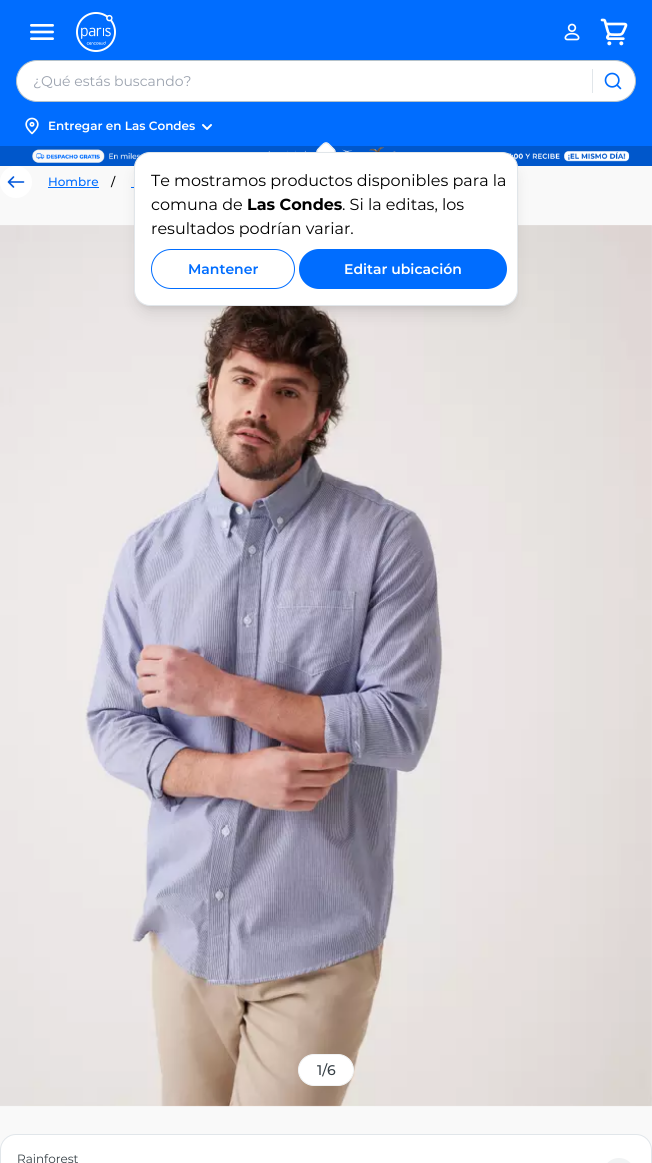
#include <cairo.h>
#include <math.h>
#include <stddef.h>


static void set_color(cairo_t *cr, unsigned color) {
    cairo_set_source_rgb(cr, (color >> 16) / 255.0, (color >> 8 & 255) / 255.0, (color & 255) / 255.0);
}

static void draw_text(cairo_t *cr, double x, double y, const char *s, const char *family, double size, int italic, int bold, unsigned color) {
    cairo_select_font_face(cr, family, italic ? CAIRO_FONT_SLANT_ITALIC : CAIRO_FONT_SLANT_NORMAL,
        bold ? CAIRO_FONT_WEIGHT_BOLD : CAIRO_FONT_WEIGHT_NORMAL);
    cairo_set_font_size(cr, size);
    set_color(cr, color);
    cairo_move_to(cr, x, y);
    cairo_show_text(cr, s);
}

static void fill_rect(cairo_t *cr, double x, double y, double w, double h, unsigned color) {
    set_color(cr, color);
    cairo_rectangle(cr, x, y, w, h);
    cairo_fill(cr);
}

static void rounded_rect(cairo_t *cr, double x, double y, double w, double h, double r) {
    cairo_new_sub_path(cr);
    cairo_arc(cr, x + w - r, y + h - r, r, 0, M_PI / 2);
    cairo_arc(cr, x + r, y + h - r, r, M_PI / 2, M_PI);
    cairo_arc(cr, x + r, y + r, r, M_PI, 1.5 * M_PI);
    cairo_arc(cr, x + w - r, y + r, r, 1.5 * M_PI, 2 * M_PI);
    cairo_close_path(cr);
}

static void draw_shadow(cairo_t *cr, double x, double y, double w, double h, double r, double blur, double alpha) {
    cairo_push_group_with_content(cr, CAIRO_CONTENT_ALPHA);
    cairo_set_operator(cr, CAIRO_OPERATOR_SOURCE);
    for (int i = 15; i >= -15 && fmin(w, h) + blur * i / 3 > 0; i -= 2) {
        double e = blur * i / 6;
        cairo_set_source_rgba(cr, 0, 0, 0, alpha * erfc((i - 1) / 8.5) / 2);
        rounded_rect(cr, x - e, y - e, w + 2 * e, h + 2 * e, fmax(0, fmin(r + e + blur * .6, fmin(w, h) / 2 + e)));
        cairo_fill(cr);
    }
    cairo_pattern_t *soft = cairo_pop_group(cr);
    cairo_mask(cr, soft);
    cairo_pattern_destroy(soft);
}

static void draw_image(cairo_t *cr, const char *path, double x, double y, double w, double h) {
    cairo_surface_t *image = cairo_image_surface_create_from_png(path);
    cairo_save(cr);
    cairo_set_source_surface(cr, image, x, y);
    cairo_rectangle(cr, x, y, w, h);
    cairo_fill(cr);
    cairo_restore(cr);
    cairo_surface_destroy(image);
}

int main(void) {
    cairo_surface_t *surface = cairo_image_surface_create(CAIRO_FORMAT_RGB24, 652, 1163);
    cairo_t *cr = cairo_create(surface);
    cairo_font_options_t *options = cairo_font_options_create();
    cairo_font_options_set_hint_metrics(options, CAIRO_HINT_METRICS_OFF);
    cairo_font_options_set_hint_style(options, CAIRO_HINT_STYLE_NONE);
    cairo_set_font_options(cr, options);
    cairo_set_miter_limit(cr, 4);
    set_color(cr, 0xF9F9F9);
    cairo_paint(cr);
    fill_rect(cr, 0, 0, 652, 146, 0x006DFF);
    draw_image(cr, "assets/img1.png", 30, 24, 24, 16);
    draw_image(cr, "assets/img2.png", 76, 12, 40, 40);
    draw_image(cr, "assets/img3.png", 564, 23, 16, 18);
    draw_image(cr, "assets/img4.png", 600, 18, 28, 28);
    set_color(cr, 0xFFFFFF);
    rounded_rect(cr, 16.5, 60.5, 619, 41, 20.5);
    cairo_fill_preserve(cr);
    set_color(cr, 0xB4C2CB);
    cairo_set_line_width(cr, 1);
    cairo_stroke(cr);
    draw_text(cr, 33, 86, "¿Qué estás buscando?", "Montserrat", 14, 0, 0, 0x9CA3AF);
    fill_rect(cr, 592, 69, 1, 24, 0xE1E6EA);
    draw_image(cr, "assets/img5.png", 604, 72, 18, 18);
    draw_image(cr, "assets/img6.png", 25, 117, 14, 18);
    draw_text(cr, 48, 130, "Entregar en Las Condes", "Montserrat SemiBold", 12, 0, 0, 0xFFFFFF);
    draw_image(cr, "assets/img7.png", 202, 124, 10, 6);
    draw_image(cr, "assets/img8.png", 0, 146, 652, 20);
    cairo_new_path(cr);
    cairo_move_to(cr, 329, 143.5);
    cairo_line_to(cr, 334.5, 149);
    cairo_curve_to(cr, 336, 150.5, 336, 153.5, 334.5, 155);
    cairo_line_to(cr, 329, 160.5);
    cairo_curve_to(cr, 327.5, 162, 324.5, 162, 323, 160.5);
    cairo_line_to(cr, 317.5, 155);
    cairo_curve_to(cr, 316, 153.5, 316, 150.5, 317.5, 149);
    cairo_line_to(cr, 323, 143.5);
    cairo_curve_to(cr, 324.5, 142, 327.5, 142, 329, 143.5);
    cairo_close_path(cr);
    cairo_fill(cr);
    cairo_new_path(cr);
    cairo_move_to(cr, 317, 152);
    cairo_curve_to(cr, 317, 149.5, 319.5, 148, 320.5, 146.5);
    cairo_curve_to(cr, 326.5, 141, 326.5, 142, 332, 147.5);
    cairo_curve_to(cr, 333.5, 149, 335, 150, 335, 152);
    set_color(cr, 0xE1E6EA);
    cairo_stroke(cr);
    fill_rect(cr, 131, 187, 3, 1, 0x006DFF);
    draw_image(cr, "assets/img10.png", 0, 225, 652, 882);
    set_color(cr, 0x000000);
    draw_shadow(cr, 138, 160, 376, 146, 12, 3, 0.1);
    draw_shadow(cr, 137, 165, 378, 148, 13, 7.5, 0.1);
    set_color(cr, 0xFFFFFF);
    rounded_rect(cr, 134.5, 152.5, 383, 153, 15.5);
    cairo_fill_preserve(cr);
    set_color(cr, 0xE1E6EA);
    cairo_stroke(cr);
    draw_text(cr, 151, 186, "Te mostramos productos disponibles para la", "Montserrat", 16, 0, 0, 0x000000);
    draw_text(cr, 151, 210, "comuna de", "Montserrat", 16, 0, 0, 0x000000);
    draw_text(cr, 247, 210, "Las Condes", "Montserrat", 16, 0, 1, 0x000000);
    draw_text(cr, 342, 210, ". Si la editas, los", "Montserrat", 16, 0, 0, 0x000000);
    draw_text(cr, 151, 234, "resultados podrían variar.", "Montserrat", 16, 0, 0, 0x000000);
    rounded_rect(cr, 151.5, 249.5, 143, 39, 19.5);
    set_color(cr, 0x006DFF);
    cairo_stroke(cr);
    draw_text(cr, 188, 274, "Mantener", "Montserrat SemiBold", 14, 0, 0, 0x006DFF);
    rounded_rect(cr, 299, 249, 208, 40, 20);
    cairo_fill(cr);
    draw_text(cr, 344, 274, "Editar ubicación", "Montserrat SemiBold", 14, 0, 0, 0xFFFFFF);
    cairo_new_path(cr);
    cairo_arc(cr, 16, 182, 16, 0, 2 * M_PI);
    cairo_fill(cr);
    draw_image(cr, "assets/img9.png", 7, 176, 18, 12);
    draw_text(cr, 48, 186, "Hombre", "Montserrat Medium", 12, 0, 0, 0x006DFF);
    fill_rect(cr, 48, 187, 51, 1, 0x006DFF);
    draw_text(cr, 111, 186, "/", "Montserrat Medium", 12, 0, 0, 0x000000);
    set_color(cr, 0xFFFFFF);
    rounded_rect(cr, 298.5, 1054.5, 55, 31, 15.5);
    cairo_fill_preserve(cr);
    set_color(cr, 0xF1F3F4);
    cairo_stroke(cr);
    draw_text(cr, 317, 1075, "1/6", "Montserrat Medium", 14, 0, 0, 0x363F45);
    set_color(cr, 0xFFFFFF);
    rounded_rect(cr, 0.5, 1134.5, 651, 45, 15.5);
    cairo_fill_preserve(cr);
    set_color(cr, 0xE1E6EA);
    cairo_stroke(cr);
    draw_text(cr, 17, 1163, "Rainforest", "Montserrat", 12, 0, 0, 0x363F45);
    set_color(cr, 0xF1F3F4);
    rounded_rect(cr, 603, 1158, 32, 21, 16);
    cairo_fill(cr);
    cairo_surface_write_to_png(surface, "output.png");
    cairo_font_options_destroy(options);
    cairo_destroy(cr);
    cairo_surface_destroy(surface);
    return 0;
}
